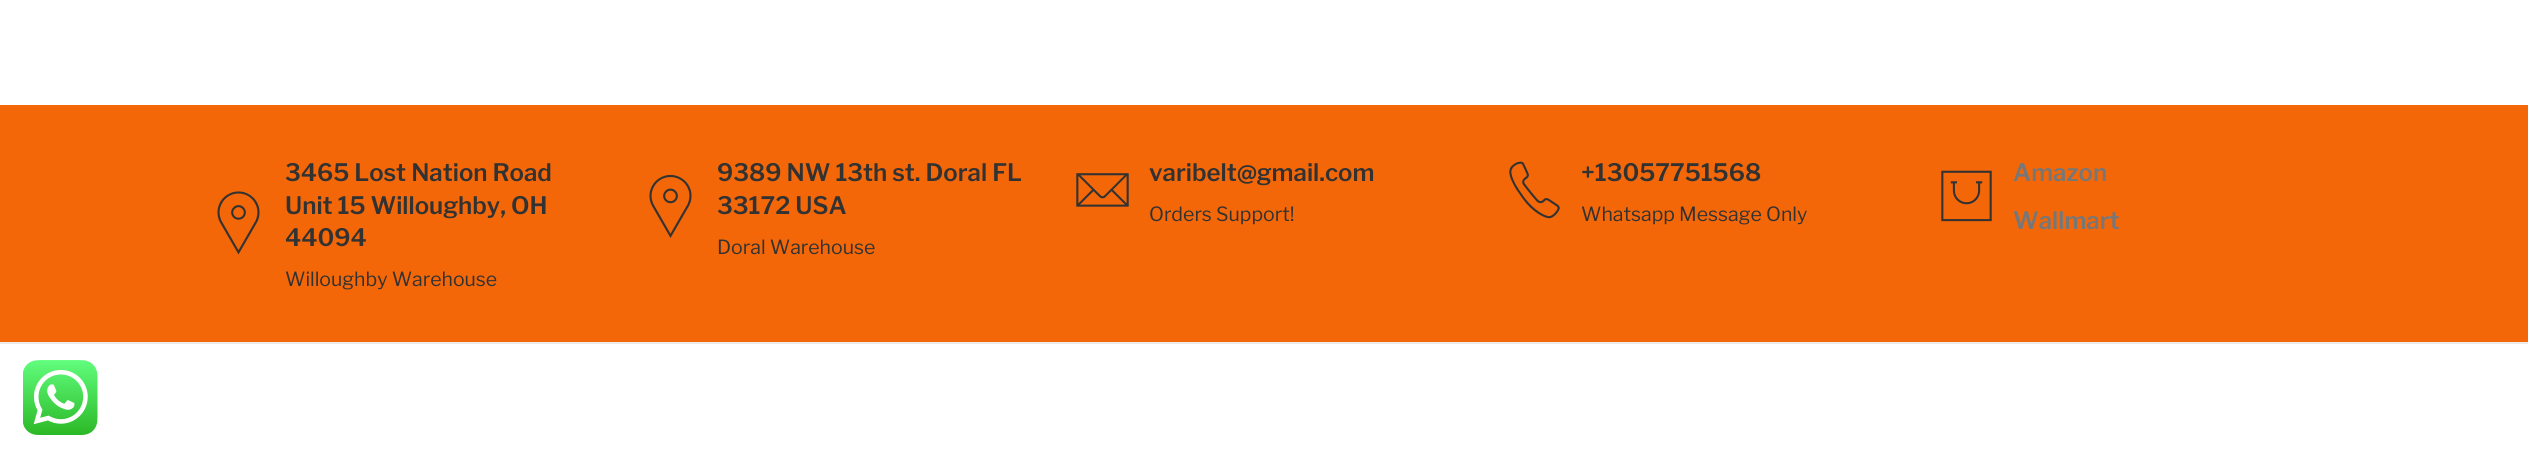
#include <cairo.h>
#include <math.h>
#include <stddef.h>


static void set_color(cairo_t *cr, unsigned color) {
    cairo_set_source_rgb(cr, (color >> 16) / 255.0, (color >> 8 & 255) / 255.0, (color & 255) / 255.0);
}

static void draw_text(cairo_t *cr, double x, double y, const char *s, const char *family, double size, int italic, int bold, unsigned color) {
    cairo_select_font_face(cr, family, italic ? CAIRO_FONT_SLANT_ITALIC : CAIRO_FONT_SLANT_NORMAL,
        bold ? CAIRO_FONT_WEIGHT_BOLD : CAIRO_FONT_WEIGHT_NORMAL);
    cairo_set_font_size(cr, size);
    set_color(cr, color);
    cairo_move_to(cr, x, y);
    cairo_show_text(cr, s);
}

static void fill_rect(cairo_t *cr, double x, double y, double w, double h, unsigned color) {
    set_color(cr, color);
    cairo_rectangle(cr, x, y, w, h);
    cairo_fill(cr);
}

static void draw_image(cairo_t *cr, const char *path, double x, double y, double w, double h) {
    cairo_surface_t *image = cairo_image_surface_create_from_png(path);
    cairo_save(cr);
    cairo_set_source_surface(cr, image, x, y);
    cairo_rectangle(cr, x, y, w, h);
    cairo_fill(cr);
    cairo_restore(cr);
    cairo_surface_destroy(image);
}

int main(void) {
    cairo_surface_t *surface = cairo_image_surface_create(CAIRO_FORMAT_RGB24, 2528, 457);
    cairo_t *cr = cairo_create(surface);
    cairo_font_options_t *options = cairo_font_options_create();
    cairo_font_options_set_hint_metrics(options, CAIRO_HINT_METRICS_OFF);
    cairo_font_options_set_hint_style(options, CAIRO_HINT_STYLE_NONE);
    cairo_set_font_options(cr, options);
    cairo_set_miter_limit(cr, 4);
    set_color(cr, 0xFFFFFF);
    cairo_paint(cr);
    fill_rect(cr, 0, 105, 2528, 237, 0xF36708);
    draw_image(cr, "assets/img1.png", 217, 191, 43, 64);
    draw_text(cr, 285, 181, "3465 Lost Nation Road", "Libre Franklin SemiBold", 24, 0, 0, 0x323232);
    draw_text(cr, 285, 214, "Unit 15 Willoughby, OH", "Libre Franklin SemiBold", 24, 0, 0, 0x323232);
    draw_text(cr, 285, 246, "44094", "Libre Franklin SemiBold", 24, 0, 0, 0x323232);
    draw_text(cr, 285, 286, "Willoughby Warehouse", "Libre Franklin", 19.5, 0, 0, 0x323232);
    draw_image(cr, "assets/img2.png", 649, 174, 43, 64);
    draw_text(cr, 717, 181, "9389 NW 13th st. Doral FL", "Libre Franklin SemiBold", 24, 0, 0, 0x323232);
    draw_text(cr, 717, 214, "33172 USA", "Libre Franklin SemiBold", 24, 0, 0, 0x323232);
    draw_text(cr, 717, 254, "Doral Warehouse", "Libre Franklin", 19.5, 0, 0, 0x323232);
    draw_image(cr, "assets/img3.png", 1076, 173, 53, 34);
    draw_text(cr, 1149, 181, "varibelt@gmail.com", "Libre Franklin SemiBold", 24, 0, 0, 0x323232);
    draw_text(cr, 1149, 221, "Orders Support!", "Libre Franklin", 19.5, 0, 0, 0x323232);
    draw_image(cr, "assets/img4.png", 1509, 161, 51, 58);
    draw_text(cr, 1581, 181, "+13057751568", "Libre Franklin SemiBold", 24, 0, 0, 0x323232);
    draw_text(cr, 1581, 221, "Whatsapp Message Only", "Libre Franklin", 19.5, 0, 0, 0x323232);
    draw_image(cr, "assets/img5.png", 1941, 170, 51, 52);
    draw_text(cr, 2013, 181, "Amazon", "Libre Franklin SemiBold", 24, 0, 0, 0x777777);
    draw_text(cr, 2013, 229, "Wallmart", "Libre Franklin SemiBold", 24, 0, 0, 0x777777);
    fill_rect(cr, 0, 342, 2528, 2, 0xEBEBEB);
    draw_image(cr, "assets/img6.png", 23, 360, 75, 75);
    cairo_surface_write_to_png(surface, "output.png");
    cairo_font_options_destroy(options);
    cairo_destroy(cr);
    cairo_surface_destroy(surface);
    return 0;
}
